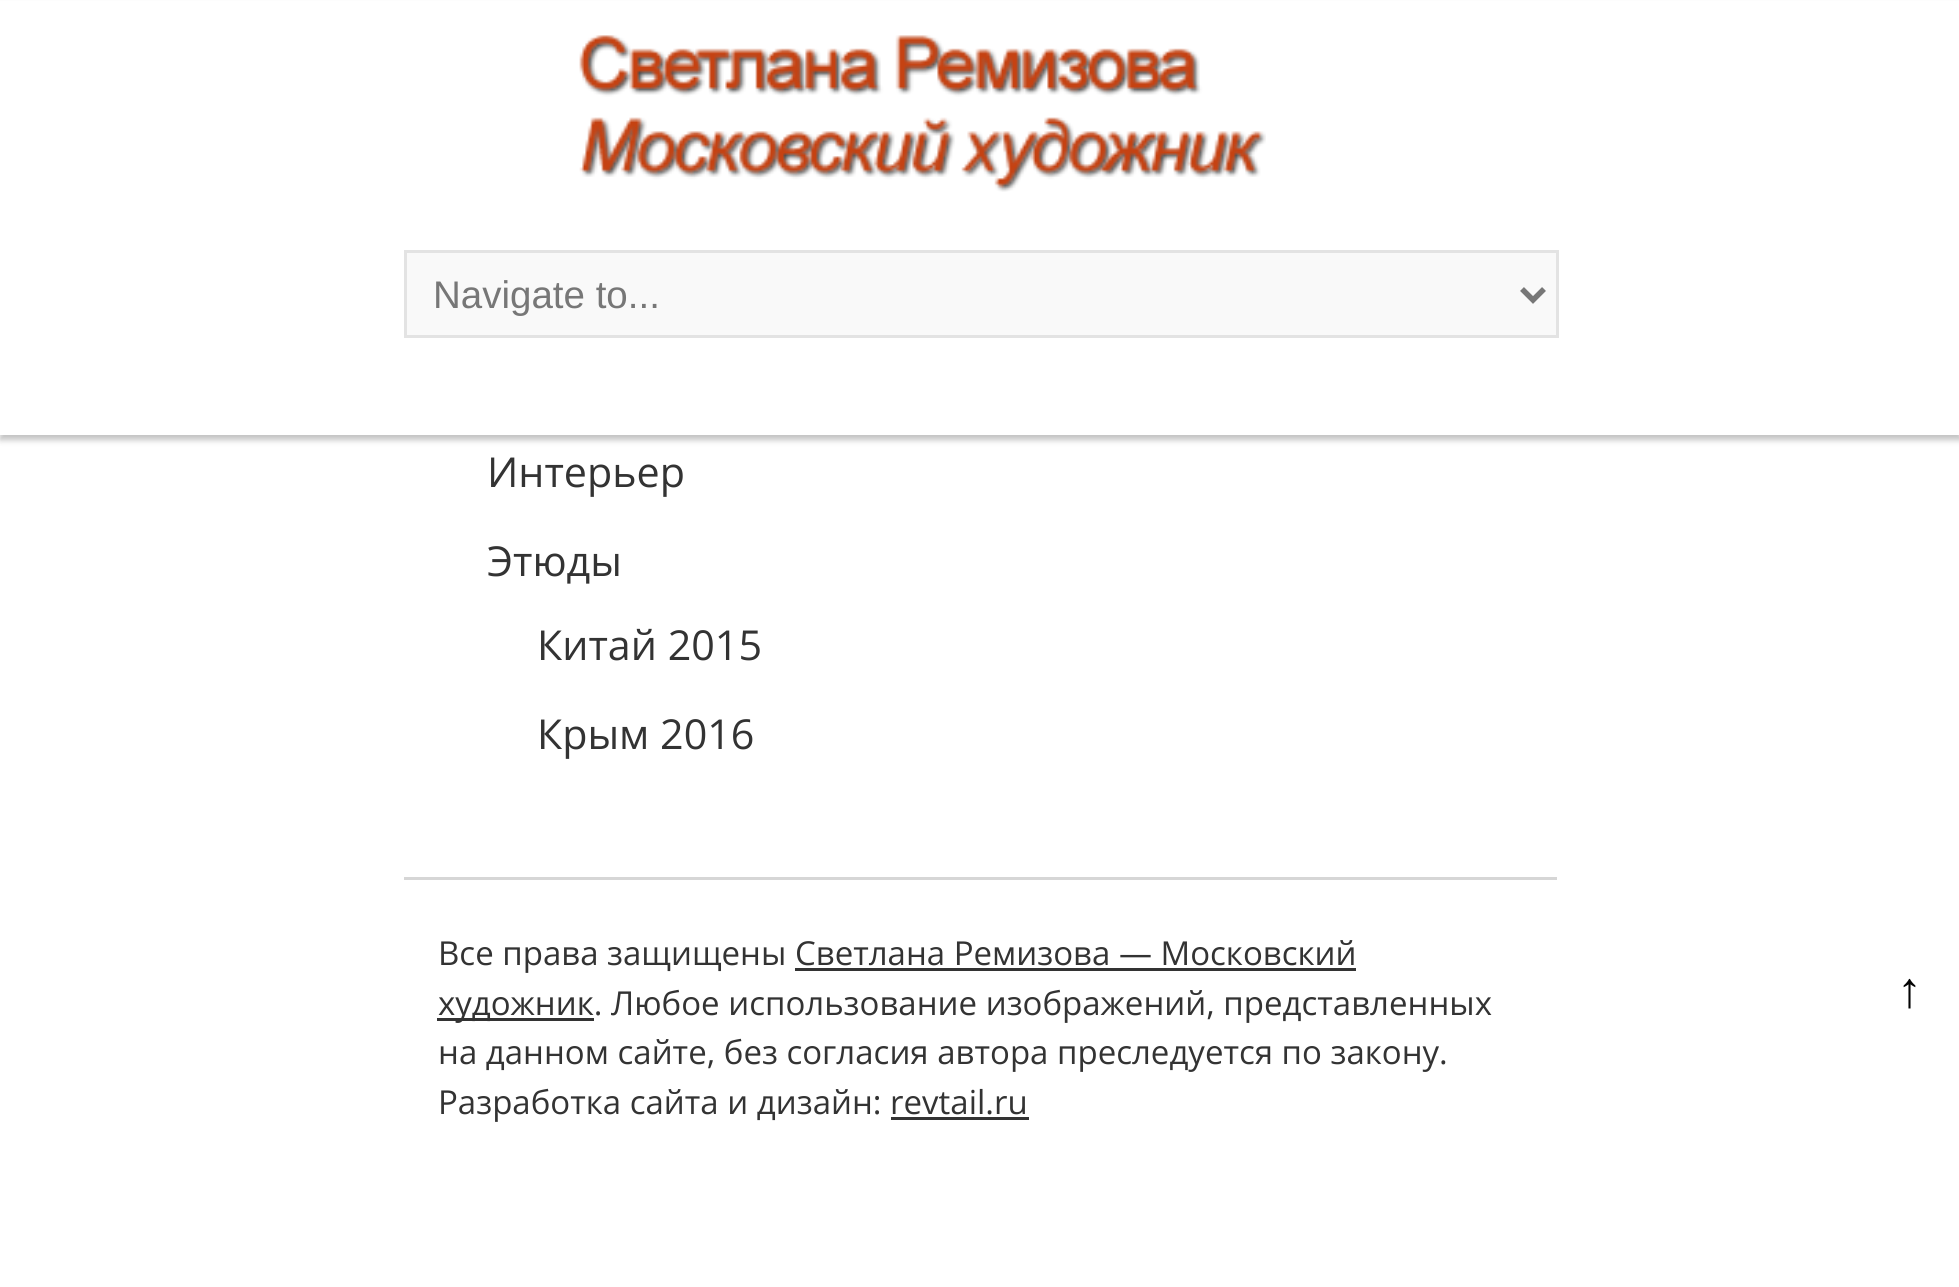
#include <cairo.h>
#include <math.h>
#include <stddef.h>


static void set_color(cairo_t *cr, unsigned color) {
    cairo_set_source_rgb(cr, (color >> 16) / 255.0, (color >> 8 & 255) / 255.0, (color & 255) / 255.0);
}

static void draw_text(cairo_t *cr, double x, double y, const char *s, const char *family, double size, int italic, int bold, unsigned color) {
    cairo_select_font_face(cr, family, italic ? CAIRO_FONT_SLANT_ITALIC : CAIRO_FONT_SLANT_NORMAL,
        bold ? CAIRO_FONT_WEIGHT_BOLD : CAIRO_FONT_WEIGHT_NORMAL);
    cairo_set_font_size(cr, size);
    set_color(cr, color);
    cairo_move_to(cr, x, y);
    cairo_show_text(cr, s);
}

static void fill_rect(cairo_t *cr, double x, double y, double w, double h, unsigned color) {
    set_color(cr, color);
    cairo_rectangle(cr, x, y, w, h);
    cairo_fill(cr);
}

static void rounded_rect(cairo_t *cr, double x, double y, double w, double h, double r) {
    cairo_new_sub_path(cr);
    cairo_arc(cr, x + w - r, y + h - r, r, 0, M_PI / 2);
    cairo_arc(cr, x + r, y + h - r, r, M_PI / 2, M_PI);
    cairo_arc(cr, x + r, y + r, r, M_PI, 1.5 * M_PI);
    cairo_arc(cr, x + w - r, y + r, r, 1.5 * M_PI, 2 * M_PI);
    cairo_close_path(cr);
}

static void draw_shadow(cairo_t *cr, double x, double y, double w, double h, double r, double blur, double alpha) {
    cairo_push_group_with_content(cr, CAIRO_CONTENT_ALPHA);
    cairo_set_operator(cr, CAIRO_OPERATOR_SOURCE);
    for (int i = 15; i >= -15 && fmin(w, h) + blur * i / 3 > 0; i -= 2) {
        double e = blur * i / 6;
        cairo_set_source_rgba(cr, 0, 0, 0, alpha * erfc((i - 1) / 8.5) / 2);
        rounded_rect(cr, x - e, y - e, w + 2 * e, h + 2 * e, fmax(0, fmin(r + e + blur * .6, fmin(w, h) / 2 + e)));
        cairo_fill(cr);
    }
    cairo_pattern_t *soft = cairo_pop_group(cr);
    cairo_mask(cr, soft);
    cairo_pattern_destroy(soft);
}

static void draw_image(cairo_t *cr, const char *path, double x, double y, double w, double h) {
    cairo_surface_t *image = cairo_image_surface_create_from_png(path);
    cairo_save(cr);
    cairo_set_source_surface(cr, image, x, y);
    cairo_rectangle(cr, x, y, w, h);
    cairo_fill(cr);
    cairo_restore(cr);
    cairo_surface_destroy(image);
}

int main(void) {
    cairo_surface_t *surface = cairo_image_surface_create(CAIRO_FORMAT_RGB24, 1959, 1287);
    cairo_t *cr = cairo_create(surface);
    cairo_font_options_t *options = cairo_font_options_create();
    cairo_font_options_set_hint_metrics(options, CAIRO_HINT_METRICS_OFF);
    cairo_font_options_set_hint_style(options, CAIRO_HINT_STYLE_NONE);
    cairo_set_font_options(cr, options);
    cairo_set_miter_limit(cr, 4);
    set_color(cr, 0xFFFFFF);
    cairo_paint(cr);
    set_color(cr, 0x323232);
    draw_shadow(cr, 0, 6, 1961, 434, 0, 3, 0.3);
    fill_rect(cr, 0, 1, 1959, 434, 0xFFFFFF);
    draw_image(cr, "assets/img1.png", 579, 35, 687, 157);
    set_color(cr, 0xF9F9F9);
    cairo_rectangle(cr, 405.5, 251.5, 1152, 85);
    cairo_fill_preserve(cr);
    set_color(cr, 0xE3E3E3);
    cairo_set_line_width(cr, 3);
    cairo_stroke(cr);
    cairo_new_path(cr);
    cairo_move_to(cr, 1522, 289);
    cairo_line_to(cr, 1533, 300);
    cairo_line_to(cr, 1544, 289);
    set_color(cr, 0x777777);
    cairo_set_line_width(cr, 5.5);
    cairo_stroke(cr);
    draw_text(cr, 433, 308, "Navigate to...", "Liberation Sans", 38.5, 0, 0, 0x777777);
    draw_text(cr, 487, 487, "Интерьер", "Open Sans", 41.25, 0, 0, 0x333333);
    draw_text(cr, 487, 576, "Этюды", "Open Sans", 41.25, 0, 0, 0x333333);
    draw_text(cr, 537, 660, "Китай 2015", "Open Sans", 41.25, 0, 0, 0x333333);
    draw_text(cr, 537, 749, "Крым 2016", "Open Sans", 41.25, 0, 0, 0x333333);
    fill_rect(cr, 404, 877, 1153, 3, 0xD6D6D6);
    draw_text(cr, 438, 965, "Все права защищены Светлана Ремизова — Московский", "Open Sans", 33, 0, 0, 0x333333);
    fill_rect(cr, 795, 968, 561, 3, 0x333333);
    fill_rect(cr, 437, 1018, 157, 3, 0x333333);
    draw_text(cr, 438, 1015, "художник. Любое использование изображений, представленных", "Open Sans", 33, 0, 0, 0x333333);
    draw_text(cr, 438, 1064, "на данном сайте, без согласия автора преследуется по закону.", "Open Sans", 33, 0, 0, 0x333333);
    draw_text(cr, 438, 1114, "Разработка сайта и дизайн: revtail.ru", "Open Sans", 33, 0, 0, 0x333333);
    fill_rect(cr, 891, 1117, 138, 3, 0x333333);
    draw_text(cr, 1897, 1007, "↑", "Liberation Sans", 50, 0, 0, 0x030303);
    cairo_surface_write_to_png(surface, "output.png");
    cairo_font_options_destroy(options);
    cairo_destroy(cr);
    cairo_surface_destroy(surface);
    return 0;
}
